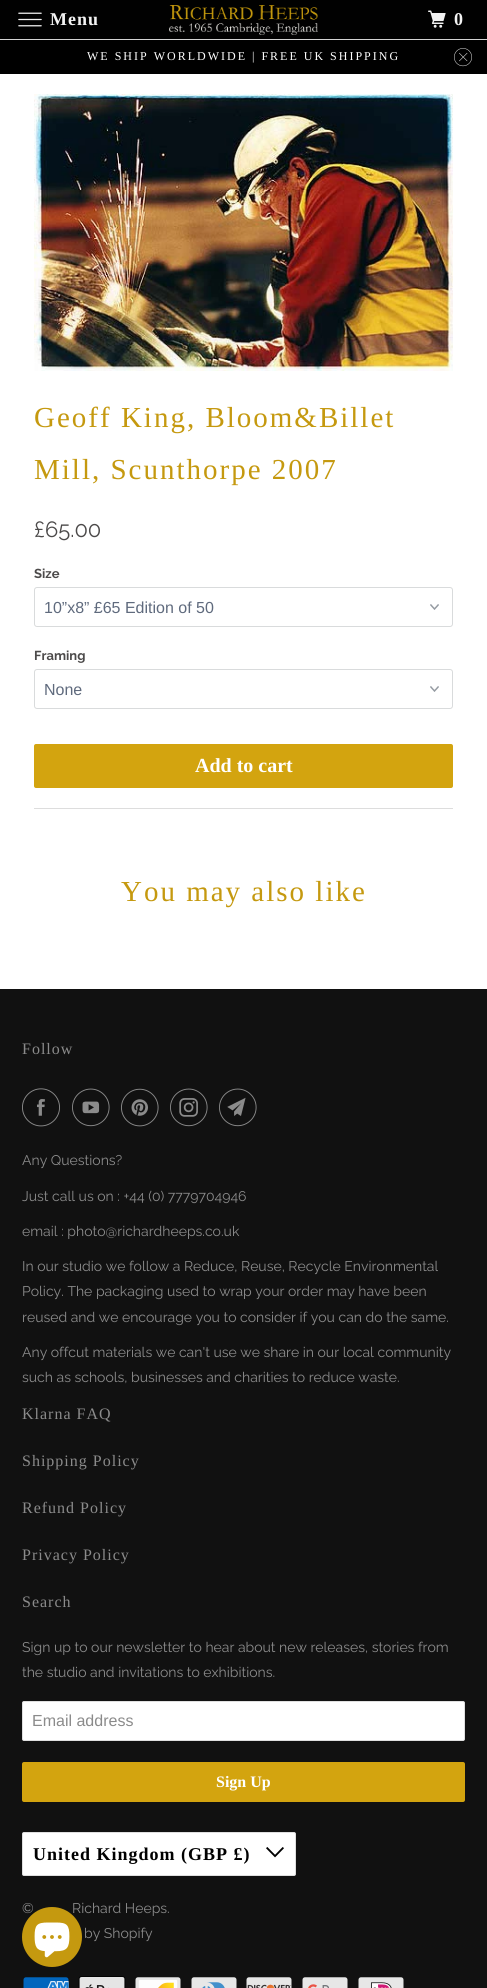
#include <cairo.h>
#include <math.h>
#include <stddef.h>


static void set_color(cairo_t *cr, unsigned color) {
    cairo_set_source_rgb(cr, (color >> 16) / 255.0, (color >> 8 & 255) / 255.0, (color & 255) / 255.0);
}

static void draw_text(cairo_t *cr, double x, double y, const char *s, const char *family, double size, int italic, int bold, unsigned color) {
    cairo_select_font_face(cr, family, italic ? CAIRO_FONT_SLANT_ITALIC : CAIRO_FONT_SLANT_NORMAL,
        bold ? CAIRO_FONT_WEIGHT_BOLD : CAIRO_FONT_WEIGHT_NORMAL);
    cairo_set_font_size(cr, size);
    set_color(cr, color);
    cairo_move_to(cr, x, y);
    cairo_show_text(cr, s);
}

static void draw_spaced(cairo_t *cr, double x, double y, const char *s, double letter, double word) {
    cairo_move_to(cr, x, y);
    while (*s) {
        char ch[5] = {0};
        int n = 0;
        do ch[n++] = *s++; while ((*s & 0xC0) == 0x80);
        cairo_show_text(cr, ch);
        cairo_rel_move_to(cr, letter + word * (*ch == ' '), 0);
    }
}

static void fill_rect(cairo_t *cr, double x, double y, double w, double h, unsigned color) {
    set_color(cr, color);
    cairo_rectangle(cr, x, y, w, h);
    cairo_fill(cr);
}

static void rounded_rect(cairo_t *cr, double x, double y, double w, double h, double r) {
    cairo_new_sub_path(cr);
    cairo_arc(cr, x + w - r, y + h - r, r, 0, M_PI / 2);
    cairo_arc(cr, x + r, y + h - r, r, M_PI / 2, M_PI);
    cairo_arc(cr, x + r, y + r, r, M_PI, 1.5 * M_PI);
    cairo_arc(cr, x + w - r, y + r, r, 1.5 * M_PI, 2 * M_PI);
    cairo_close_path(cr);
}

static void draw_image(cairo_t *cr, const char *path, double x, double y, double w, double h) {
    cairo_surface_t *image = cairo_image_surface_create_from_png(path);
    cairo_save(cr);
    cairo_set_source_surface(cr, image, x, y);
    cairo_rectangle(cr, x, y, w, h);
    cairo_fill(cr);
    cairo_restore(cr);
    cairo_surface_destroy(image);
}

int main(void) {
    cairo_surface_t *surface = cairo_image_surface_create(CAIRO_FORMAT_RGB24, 487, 1988);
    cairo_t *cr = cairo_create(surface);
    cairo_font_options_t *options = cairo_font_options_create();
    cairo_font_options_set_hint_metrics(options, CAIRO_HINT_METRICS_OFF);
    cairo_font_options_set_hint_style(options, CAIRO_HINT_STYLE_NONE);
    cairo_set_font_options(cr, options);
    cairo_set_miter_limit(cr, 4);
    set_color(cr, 0xFFFFFF);
    cairo_paint(cr);
    fill_rect(cr, 0, 0, 487, 39, 0x010101);
    fill_rect(cr, 0, 39, 487, 1, 0xD3D3D3);
    draw_image(cr, "assets/img1.png", 18, 12, 24, 15);
    cairo_select_font_face(cr, "Liberation Serif", CAIRO_FONT_SLANT_NORMAL, CAIRO_FONT_WEIGHT_BOLD);
    cairo_set_font_size(cr, 18);
    set_color(cr, 0xF3F3F3);
    draw_spaced(cr, 50, 25, "Menu", 1, 0);
    draw_image(cr, "assets/img2.png", 169, 5, 149, 30);
    draw_image(cr, "assets/img3.png", 428, 10, 18, 18);
    draw_spaced(cr, 454, 25, "0", 1, 0);
    fill_rect(cr, 0, 40, 487, 34, 0x000000);
    cairo_select_font_face(cr, "Liberation Serif", CAIRO_FONT_SLANT_NORMAL, CAIRO_FONT_WEIGHT_NORMAL);
    cairo_set_font_size(cr, 12);
    set_color(cr, 0xFFFFFF);
    draw_spaced(cr, 87, 60, "WE SHIP WORLDWIDE | FREE UK SHIPPING", 2, 0);
    draw_image(cr, "assets/img4.png", 454, 48, 18, 19);
    draw_image(cr, "assets/img5.png", 34, 94, 419, 277);
    cairo_set_font_size(cr, 29);
    set_color(cr, 0xC5990F);
    draw_spaced(cr, 34, 427, "Geoff King, Bloom&Billet", 2, 0);
    draw_spaced(cr, 34, 479, "Mill, Scunthorpe 2007", 2, 0);
    draw_text(cr, 34, 537, "£65.00", "Raleway", 22, 0, 0, 0x4C4A4A);
    draw_text(cr, 34, 578, "Size", "Raleway", 13, 0, 1, 0x4C4A4A);
    draw_image(cr, "assets/img6.png", 430, 604, 9, 6);
    rounded_rect(cr, 34.5, 587.5, 418, 39, 2.5);
    set_color(cr, 0xD9DBDC);
    cairo_set_line_width(cr, 1);
    cairo_stroke(cr);
    draw_text(cr, 44, 613, "10”x8” £65 Edition of 50", "Liberation Sans", 16, 0, 0, 0x5F6A7D);
    draw_text(cr, 34, 660, "Framing", "Raleway", 13, 0, 1, 0x4C4A4A);
    draw_image(cr, "assets/img6.png", 430, 686, 9, 6);
    rounded_rect(cr, 34.5, 669.5, 418, 39, 2.5);
    set_color(cr, 0xD9DBDC);
    cairo_stroke(cr);
    draw_text(cr, 44, 695, "None", "Liberation Sans", 16, 0, 0, 0x5F6A7D);
    set_color(cr, 0xD3A40F);
    rounded_rect(cr, 34, 744, 419, 44, 2);
    cairo_fill(cr);
    draw_text(cr, 195, 772, "Add to cart", "Liberation Serif", 20, 0, 1, 0xFFFFFF);
    fill_rect(cr, 34, 808, 419, 1, 0xDDDDDD);
    cairo_select_font_face(cr, "Liberation Serif", CAIRO_FONT_SLANT_NORMAL, CAIRO_FONT_WEIGHT_NORMAL);
    cairo_set_font_size(cr, 29);
    set_color(cr, 0xC5990F);
    draw_spaced(cr, 121, 901, "You may also like", 2, 0);
    fill_rect(cr, 0, 989, 487, 999, 0x111111);
    cairo_set_font_size(cr, 16);
    set_color(cr, 0x8B8B8B);
    draw_spaced(cr, 22, 1054, "Follow", 1, 0);
    draw_image(cr, "assets/img7.png", 22, 1088, 38, 39);
    draw_image(cr, "assets/img8.png", 72, 1088, 38, 39);
    draw_image(cr, "assets/img9.png", 121, 1088, 38, 39);
    draw_image(cr, "assets/img10.png", 170, 1088, 38, 39);
    draw_image(cr, "assets/img11.png", 219, 1088, 38, 39);
    draw_text(cr, 22, 1165, "Any Questions?", "Raleway", 14, 0, 0, 0x8B8B8B);
    draw_text(cr, 22, 1201, "Just call us on : +44 (0) 7779704946", "Raleway", 14, 0, 0, 0x8B8B8B);
    draw_text(cr, 22, 1236, "email : photo@richardheeps.co.uk", "Raleway", 14, 0, 0, 0x8B8B8B);
    draw_text(cr, 22, 1271, "In our studio we follow a Reduce, Reuse, Recycle Environmental", "Raleway", 14, 0, 0, 0x8B8B8B);
    draw_text(cr, 22, 1296, "Policy. The packaging used to wrap your order may have been", "Raleway", 14, 0, 0, 0x8B8B8B);
    draw_text(cr, 22, 1322, "reused and we encourage you to consider if you can do the same.", "Raleway", 14, 0, 0, 0x8B8B8B);
    draw_text(cr, 22, 1357, "Any offcut materials we can't use we share in our local community", "Raleway", 14, 0, 0, 0x8B8B8B);
    draw_text(cr, 22, 1382, "such as schools, businesses and charities to reduce waste.", "Raleway", 14, 0, 0, 0x8B8B8B);
    cairo_select_font_face(cr, "Liberation Serif", CAIRO_FONT_SLANT_NORMAL, CAIRO_FONT_WEIGHT_NORMAL);
    cairo_set_font_size(cr, 16);
    draw_spaced(cr, 22, 1419, "Klarna FAQ", 1, 0);
    draw_spaced(cr, 22, 1466, "Shipping Policy", 1, 0);
    draw_spaced(cr, 22, 1513, "Refund Policy", 1, 0);
    draw_spaced(cr, 22, 1560, "Privacy Policy", 1, 0);
    draw_spaced(cr, 22, 1607, "Search", 1, 0);
    draw_text(cr, 22, 1652, "Sign up to our newsletter to hear about new releases, stories from", "Raleway", 14, 0, 0, 0x8B8B8B);
    draw_text(cr, 22, 1677, "the studio and invitations to exhibitions.", "Raleway", 14, 0, 0, 0x8B8B8B);
    set_color(cr, 0xFFFFFF);
    rounded_rect(cr, 22.5, 1701.5, 442, 39, 1.5);
    cairo_fill_preserve(cr);
    set_color(cr, 0xDFDFDF);
    cairo_stroke(cr);
    draw_text(cr, 32, 1726, "Email address", "Liberation Sans", 16, 0, 0, 0x8B8B8B);
    set_color(cr, 0xD3A40F);
    rounded_rect(cr, 22, 1762, 443, 40, 2);
    cairo_fill(cr);
    draw_text(cr, 216, 1787, "Sign Up", "Liberation Serif", 16, 0, 1, 0xFFFFFF);
    rounded_rect(cr, 22.5, 1832.5, 273, 43, 1.5);
    cairo_fill_preserve(cr);
    set_color(cr, 0xDFDFDF);
    cairo_stroke(cr);
    cairo_set_font_size(cr, 18);
    set_color(cr, 0x000000);
    draw_spaced(cr, 33, 1860, "United Kingdom (GBP £)", 1, 0);
    draw_image(cr, "assets/img12.png", 266, 1847, 18, 11);
    draw_text(cr, 22, 1913, "©", "Raleway", 14, 0, 0, 0x8B8B8B);
    draw_text(cr, 72, 1913, "Richard Heeps.", "Raleway", 14, 0, 0, 0x8B8B8B);
    draw_text(cr, 84, 1938, "by Shopify", "Raleway", 14, 0, 0, 0x8B8B8B);
    draw_image(cr, "assets/img13.png", 23, 1977, 46, 11);
    draw_image(cr, "assets/img14.png", 78, 1976, 48, 12);
    draw_image(cr, "assets/img15.png", 135, 1977, 46, 11);
    draw_image(cr, "assets/img16.png", 191, 1977, 46, 11);
    draw_image(cr, "assets/img17.png", 246, 1977, 46, 11);
    draw_image(cr, "assets/img18.png", 302, 1977, 46, 11);
    draw_image(cr, "assets/img19.png", 358, 1977, 46, 11);
    set_color(cr, 0xC5990F);
    cairo_arc(cr, 52, 1937, 30, 0, 2 * M_PI);
    cairo_fill(cr);
    draw_image(cr, "assets/img20.png", 34, 1922, 36, 36);
    cairo_surface_write_to_png(surface, "output.png");
    cairo_font_options_destroy(options);
    cairo_destroy(cr);
    cairo_surface_destroy(surface);
    return 0;
}
